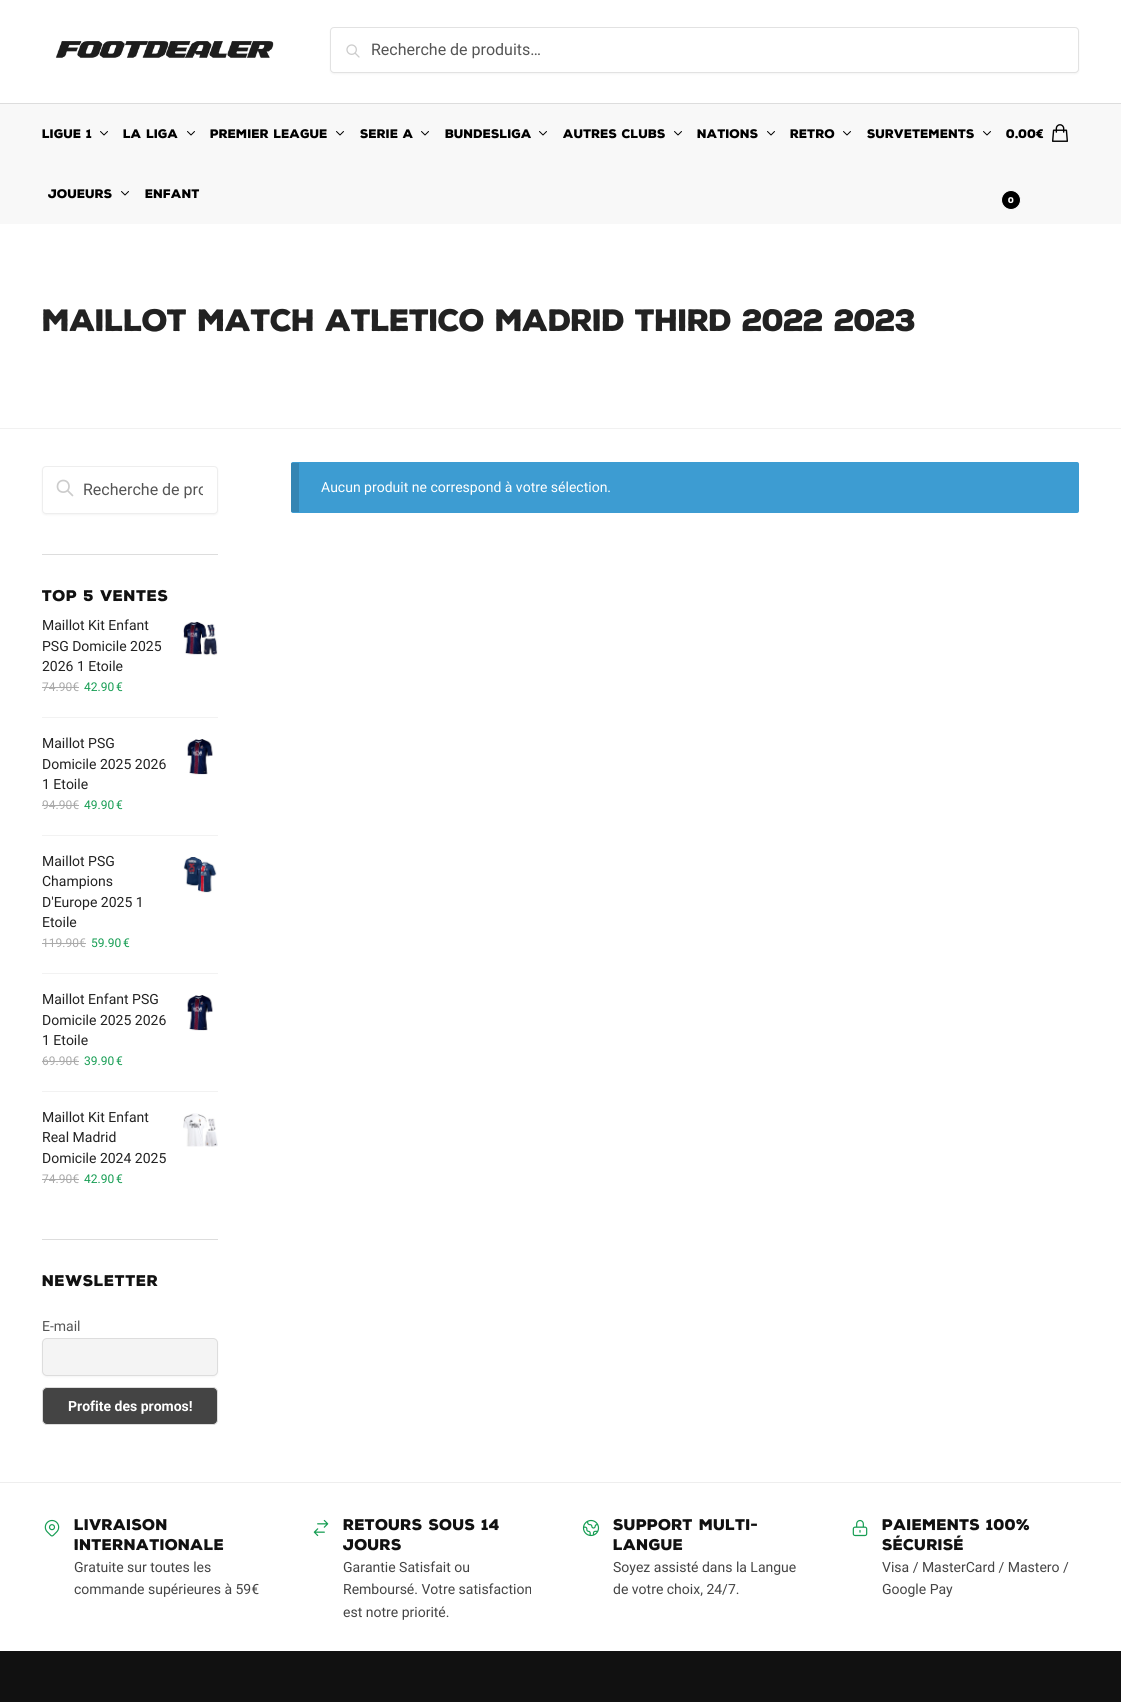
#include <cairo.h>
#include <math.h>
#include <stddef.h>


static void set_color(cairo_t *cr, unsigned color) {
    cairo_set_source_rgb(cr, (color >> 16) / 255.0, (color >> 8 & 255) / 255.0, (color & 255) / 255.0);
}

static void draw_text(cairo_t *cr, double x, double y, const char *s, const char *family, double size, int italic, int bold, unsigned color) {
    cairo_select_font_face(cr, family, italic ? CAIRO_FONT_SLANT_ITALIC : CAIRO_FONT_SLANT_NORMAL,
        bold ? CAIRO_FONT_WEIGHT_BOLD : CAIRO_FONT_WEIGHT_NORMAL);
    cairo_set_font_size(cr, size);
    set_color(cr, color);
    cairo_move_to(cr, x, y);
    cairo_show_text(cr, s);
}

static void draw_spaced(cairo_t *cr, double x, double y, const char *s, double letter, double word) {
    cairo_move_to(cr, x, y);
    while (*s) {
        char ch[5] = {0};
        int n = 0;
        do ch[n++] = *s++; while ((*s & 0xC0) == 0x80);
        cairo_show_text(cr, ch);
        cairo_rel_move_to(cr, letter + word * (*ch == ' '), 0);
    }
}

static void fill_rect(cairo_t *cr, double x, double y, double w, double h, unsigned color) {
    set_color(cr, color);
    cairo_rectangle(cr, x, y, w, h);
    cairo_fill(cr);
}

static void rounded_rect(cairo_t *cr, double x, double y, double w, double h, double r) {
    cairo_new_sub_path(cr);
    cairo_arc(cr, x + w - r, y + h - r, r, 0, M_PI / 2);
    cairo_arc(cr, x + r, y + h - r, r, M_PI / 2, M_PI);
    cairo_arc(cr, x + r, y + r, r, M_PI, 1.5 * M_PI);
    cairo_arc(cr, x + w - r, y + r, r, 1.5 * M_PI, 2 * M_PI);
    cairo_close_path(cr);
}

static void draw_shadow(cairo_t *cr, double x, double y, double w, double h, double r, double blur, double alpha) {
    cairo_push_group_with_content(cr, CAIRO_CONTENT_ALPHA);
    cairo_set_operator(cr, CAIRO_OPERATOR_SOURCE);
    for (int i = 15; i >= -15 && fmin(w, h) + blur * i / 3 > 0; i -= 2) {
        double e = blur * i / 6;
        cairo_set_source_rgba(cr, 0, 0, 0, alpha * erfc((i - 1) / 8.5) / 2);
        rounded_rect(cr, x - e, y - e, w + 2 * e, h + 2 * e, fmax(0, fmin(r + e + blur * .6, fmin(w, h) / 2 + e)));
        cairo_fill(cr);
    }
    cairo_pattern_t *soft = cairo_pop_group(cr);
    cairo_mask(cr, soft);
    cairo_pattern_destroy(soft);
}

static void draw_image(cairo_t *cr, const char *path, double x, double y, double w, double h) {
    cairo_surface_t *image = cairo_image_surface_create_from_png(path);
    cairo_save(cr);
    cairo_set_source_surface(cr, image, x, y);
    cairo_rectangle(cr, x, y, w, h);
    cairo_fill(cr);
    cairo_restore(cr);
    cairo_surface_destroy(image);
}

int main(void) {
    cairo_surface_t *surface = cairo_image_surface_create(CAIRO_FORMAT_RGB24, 1136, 1702);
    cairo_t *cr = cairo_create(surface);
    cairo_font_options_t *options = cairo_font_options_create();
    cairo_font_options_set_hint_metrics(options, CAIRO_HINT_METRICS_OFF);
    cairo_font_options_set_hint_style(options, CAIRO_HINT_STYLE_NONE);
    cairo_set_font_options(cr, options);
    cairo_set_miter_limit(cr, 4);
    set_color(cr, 0xFFFFFF);
    cairo_paint(cr);
    draw_image(cr, "assets/img1.png", 55, 41, 219, 17);
    set_color(cr, 0x000000);
    draw_shadow(cr, 330, 28, 749, 46, 4, 1, 0.05);
    set_color(cr, 0xFFFFFF);
    rounded_rect(cr, 330.5, 27.5, 748, 45, 3.5);
    cairo_fill_preserve(cr);
    set_color(cr, 0xE2E2E2);
    cairo_set_line_width(cr, 1);
    cairo_stroke(cr);
    draw_image(cr, "assets/img2.png", 346, 44, 14, 14);
    draw_text(cr, 371, 55, "Recherche de produits…", "Roboto", 16, 0, 0, 0x555555);
    fill_rect(cr, 0, 104, 1121, 120, 0xF8F8F8);
    fill_rect(cr, 0, 103, 1121, 1, 0xDDDDDD);
    cairo_select_font_face(cr, "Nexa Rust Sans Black", CAIRO_FONT_SLANT_NORMAL, CAIRO_FONT_WEIGHT_NORMAL);
    cairo_set_font_size(cr, 12);
    set_color(cr, 0x000000);
    draw_spaced(cr, 42, 138, "LIGUE 1", -0.1, 0);
    cairo_new_path(cr);
    cairo_move_to(cr, 107.5, 131.5);
    cairo_line_to(cr, 104, 135);
    cairo_line_to(cr, 100.5, 131.5);
    cairo_set_line_cap(cr, CAIRO_LINE_CAP_ROUND);
    cairo_set_line_join(cr, CAIRO_LINE_JOIN_ROUND);
    cairo_stroke(cr);
    draw_spaced(cr, 123, 138, "LA LIGA", -0.1, 0);
    cairo_new_path(cr);
    cairo_move_to(cr, 194.5, 131.5);
    cairo_line_to(cr, 191, 135);
    cairo_line_to(cr, 187.5, 131.5);
    cairo_stroke(cr);
    draw_spaced(cr, 210, 138, "PREMIER LEAGUE", -0.1, 0);
    cairo_new_path(cr);
    cairo_move_to(cr, 343.5, 131.5);
    cairo_line_to(cr, 340, 135);
    cairo_line_to(cr, 336.5, 131.5);
    cairo_stroke(cr);
    draw_spaced(cr, 360, 138, "SERIE A", -0.1, 0);
    cairo_new_path(cr);
    cairo_move_to(cr, 428.5, 131.5);
    cairo_line_to(cr, 425, 135);
    cairo_line_to(cr, 421.5, 131.5);
    cairo_stroke(cr);
    draw_spaced(cr, 445, 138, "BUNDESLIGA", -0.1, 0);
    cairo_new_path(cr);
    cairo_move_to(cr, 546.5, 131.5);
    cairo_line_to(cr, 543, 135);
    cairo_line_to(cr, 539.5, 131.5);
    cairo_stroke(cr);
    draw_spaced(cr, 563, 138, "AUTRES CLUBS", -0.1, 0);
    cairo_new_path(cr);
    cairo_move_to(cr, 681.5, 131.5);
    cairo_line_to(cr, 678, 135);
    cairo_line_to(cr, 674.5, 131.5);
    cairo_stroke(cr);
    draw_spaced(cr, 697, 138, "NATIONS", -0.1, 0);
    cairo_new_path(cr);
    cairo_move_to(cr, 774.5, 131.5);
    cairo_line_to(cr, 771, 135);
    cairo_line_to(cr, 767.5, 131.5);
    cairo_stroke(cr);
    draw_spaced(cr, 790, 138, "RETRO", -0.1, 0);
    cairo_new_path(cr);
    cairo_move_to(cr, 850.5, 131.5);
    cairo_line_to(cr, 847, 135);
    cairo_line_to(cr, 843.5, 131.5);
    cairo_stroke(cr);
    draw_spaced(cr, 867, 138, "SURVETEMENTS", -0.1, 0);
    cairo_new_path(cr);
    cairo_move_to(cr, 990.5, 131.5);
    cairo_line_to(cr, 987, 135);
    cairo_line_to(cr, 983.5, 131.5);
    cairo_stroke(cr);
    draw_spaced(cr, 48, 198, "JOUEURS", -0.1, 0);
    cairo_new_path(cr);
    cairo_move_to(cr, 128.5, 191.5);
    cairo_line_to(cr, 125, 195);
    cairo_line_to(cr, 121.5, 191.5);
    cairo_stroke(cr);
    draw_spaced(cr, 145, 198, "ENFANT", -0.1, 0);
    draw_spaced(cr, 1006, 138, "0.00€", -0.1, 0);
    draw_image(cr, "assets/img3.png", 1052, 124, 16, 18);
    cairo_arc(cr, 1011, 200, 9.5, 0, 2 * M_PI);
    cairo_fill_preserve(cr);
    set_color(cr, 0xFFFFFF);
    cairo_set_line_cap(cr, CAIRO_LINE_CAP_BUTT);
    cairo_set_line_join(cr, CAIRO_LINE_JOIN_MITER);
    cairo_stroke(cr);
    cairo_set_font_size(cr, 8);
    draw_spaced(cr, 1008, 203, "0", -0.1, 0);
    fill_rect(cr, 0, 428, 1121, 1, 0xF1F1F1);
    cairo_set_font_size(cr, 30);
    set_color(cr, 0x222222);
    draw_spaced(cr, 42, 331, "MAILLOT MATCH ATLETICO MADRID THIRD 2022 2023", -1.1, 0);
    fill_rect(cr, 42, 554, 176, 1, 0xDDDDDD);
    set_color(cr, 0x000000);
    draw_shadow(cr, 42, 467, 176, 48, 4, 1, 0.05);
    set_color(cr, 0xFFFFFF);
    rounded_rect(cr, 42.5, 466.5, 175, 47, 3.5);
    cairo_fill_preserve(cr);
    set_color(cr, 0xEEEEEE);
    cairo_stroke(cr);
    cairo_new_path(cr);
    cairo_move_to(cr, 72.5, 495.5);
    cairo_line_to(cr, 67.5, 490.5);
    cairo_move_to(cr, 69, 486.5);
    cairo_curve_to(cr, 69, 494, 57.5, 494, 57.5, 486.5);
    cairo_curve_to(cr, 57.5, 478.5, 69, 478.5, 69, 486.5);
    cairo_close_path(cr);
    set_color(cr, 0xCCCCCC);
    cairo_set_line_width(cr, 1.7);
    cairo_set_line_cap(cr, CAIRO_LINE_CAP_ROUND);
    cairo_set_line_join(cr, CAIRO_LINE_JOIN_ROUND);
    cairo_stroke(cr);
    cairo_save(cr);
    cairo_rectangle(cr, 83, 480, 120, 19);
    cairo_clip(cr);
    draw_text(cr, 83, 495, "Recherche de pro", "Roboto", 16, 0, 0, 0x555555);
    cairo_restore(cr);
    fill_rect(cr, 42, 1239, 176, 1, 0xDDDDDD);
    cairo_set_font_size(cr, 15);
    set_color(cr, 0x111111);
    draw_spaced(cr, 42, 601, "TOP 5 VENTES", 0.25, 0);
    fill_rect(cr, 42, 717, 176, 1, 0xF2F2F2);
    draw_text(cr, 42, 630, "Maillot Kit Enfant", "Roboto", 14, 0, 0, 0x222222);
    draw_image(cr, "assets/img4.png", 183, 621, 35, 35);
    draw_text(cr, 42, 651, "PSG Domicile 2025", "Roboto", 14, 0, 0, 0x222222);
    draw_text(cr, 42, 671, "2026 1 Etoile", "Roboto", 14, 0, 0, 0x222222);
    draw_text(cr, 42, 691, "74.90€", "Roboto", 12, 0, 0, 0xAAAAAA);
    fill_rect(cr, 42, 687, 37, 1, 0xAAAAAA);
    draw_text(cr, 84, 691, "42.90", "Roboto", 12, 0, 0, 0x169D53);
    draw_text(cr, 116, 691, "€", "Roboto", 12, 0, 0, 0x169D53);
    fill_rect(cr, 42, 835, 176, 1, 0xF2F2F2);
    draw_text(cr, 42, 748, "Maillot PSG", "Roboto", 14, 0, 0, 0x222222);
    draw_image(cr, "assets/img5.png", 187, 739, 26, 36);
    draw_text(cr, 42, 769, "Domicile 2025 2026", "Roboto", 14, 0, 0, 0x222222);
    draw_text(cr, 42, 789, "1 Etoile", "Roboto", 14, 0, 0, 0x222222);
    draw_text(cr, 42, 809, "94.90€", "Roboto", 12, 0, 0, 0xAAAAAA);
    fill_rect(cr, 42, 805, 37, 1, 0xAAAAAA);
    draw_text(cr, 84, 809, "49.90", "Roboto", 12, 0, 0, 0x169D53);
    draw_text(cr, 116, 809, "€", "Roboto", 12, 0, 0, 0x169D53);
    fill_rect(cr, 42, 973, 176, 1, 0xF2F2F2);
    draw_text(cr, 42, 866, "Maillot PSG", "Roboto", 14, 0, 0, 0x222222);
    draw_image(cr, "assets/img6.png", 183, 857, 34, 36);
    draw_text(cr, 42, 886, "Champions", "Roboto", 14, 0, 0, 0x222222);
    draw_text(cr, 42, 907, "D'Europe 2025 1", "Roboto", 14, 0, 0, 0x222222);
    draw_text(cr, 42, 927, "Etoile", "Roboto", 14, 0, 0, 0x222222);
    draw_text(cr, 42, 947, "119.90€", "Roboto", 12, 0, 0, 0xAAAAAA);
    fill_rect(cr, 42, 943, 44, 1, 0xAAAAAA);
    draw_text(cr, 91, 947, "59.90", "Roboto", 12, 0, 0, 0x169D53);
    draw_text(cr, 123, 947, "€", "Roboto", 12, 0, 0, 0x169D53);
    fill_rect(cr, 42, 1091, 176, 1, 0xF2F2F2);
    draw_text(cr, 42, 1004, "Maillot Enfant PSG", "Roboto", 14, 0, 0, 0x222222);
    draw_image(cr, "assets/img5.png", 187, 995, 26, 36);
    draw_text(cr, 42, 1025, "Domicile 2025 2026", "Roboto", 14, 0, 0, 0x222222);
    draw_text(cr, 42, 1045, "1 Etoile", "Roboto", 14, 0, 0, 0x222222);
    draw_text(cr, 42, 1065, "69.90€", "Roboto", 12, 0, 0, 0xAAAAAA);
    fill_rect(cr, 42, 1061, 37, 1, 0xAAAAAA);
    draw_text(cr, 84, 1065, "39.90", "Roboto", 12, 0, 0, 0x169D53);
    draw_text(cr, 116, 1065, "€", "Roboto", 12, 0, 0, 0x169D53);
    draw_text(cr, 42, 1122, "Maillot Kit Enfant", "Roboto", 14, 0, 0, 0x222222);
    draw_image(cr, "assets/img7.png", 183, 1113, 35, 34);
    draw_text(cr, 42, 1142, "Real Madrid", "Roboto", 14, 0, 0, 0x222222);
    draw_text(cr, 42, 1163, "Domicile 2024 2025", "Roboto", 14, 0, 0, 0x222222);
    draw_text(cr, 42, 1183, "74.90€", "Roboto", 12, 0, 0, 0xAAAAAA);
    fill_rect(cr, 42, 1179, 37, 1, 0xAAAAAA);
    draw_text(cr, 84, 1183, "42.90", "Roboto", 12, 0, 0, 0x169D53);
    draw_text(cr, 116, 1183, "€", "Roboto", 12, 0, 0, 0x169D53);
    cairo_select_font_face(cr, "Nexa Rust Sans Black", CAIRO_FONT_SLANT_NORMAL, CAIRO_FONT_WEIGHT_NORMAL);
    cairo_set_font_size(cr, 15);
    set_color(cr, 0x111111);
    draw_spaced(cr, 42, 1286, "NEWSLETTER", 0.25, 0);
    draw_text(cr, 42, 1331, "E-mail", "Roboto", 14, 0, 0, 0x555555);
    set_color(cr, 0x000000);
    draw_shadow(cr, 42, 1339, 176, 38, 5, 1, 0.05);
    set_color(cr, 0xF4F4F4);
    rounded_rect(cr, 42.5, 1338.5, 175, 37, 4.5);
    cairo_fill_preserve(cr);
    set_color(cr, 0xDDDDDD);
    cairo_set_line_width(cr, 1);
    cairo_set_line_cap(cr, CAIRO_LINE_CAP_BUTT);
    cairo_set_line_join(cr, CAIRO_LINE_JOIN_MITER);
    cairo_stroke(cr);
    set_color(cr, 0x444444);
    rounded_rect(cr, 42.5, 1387.5, 175, 37, 4.5);
    cairo_fill_preserve(cr);
    set_color(cr, 0xDDDDDD);
    cairo_stroke(cr);
    draw_text(cr, 68, 1411, "Profite des promos!", "Roboto", 14, 0, 1, 0xFFFFFF);
    set_color(cr, 0x3D9CD2);
    rounded_rect(cr, 291, 462, 788, 51, 2);
    cairo_fill(cr);
    cairo_set_source_rgba(cr, 0, 0, 0, 0.15);
    cairo_rectangle(cr, 291, 463, 8, 49);
    cairo_fill(cr);
    draw_text(cr, 321, 492, "Aucun produit ne correspond à votre sélection.", "Roboto", 14, 0, 0, 0xFFFFFF);
    fill_rect(cr, 0, 1482, 1121, 1, 0xEEEEEE);
    draw_text(cr, 74, 1530, "LIVRAISON", "Nexa Rust Sans Black", 15, 0, 0, 0x111111);
    draw_text(cr, 74, 1550, "INTERNATIONALE", "Nexa Rust Sans Black", 15, 0, 0, 0x111111);
    draw_image(cr, "assets/img8.png", 44, 1519, 16, 18);
    draw_text(cr, 74, 1572, "Gratuite sur toutes les", "Roboto", 14, 0, 0, 0x444444);
    draw_text(cr, 74, 1594, "commande supérieures à 59€", "Roboto", 14, 0, 0, 0x444444);
    draw_text(cr, 343, 1530, "RETOURS SOUS 14", "Nexa Rust Sans Black", 15, 0, 0, 0x111111);
    draw_text(cr, 343, 1550, "JOURS", "Nexa Rust Sans Black", 15, 0, 0, 0x111111);
    draw_image(cr, "assets/img9.png", 313, 1519, 16, 18);
    draw_text(cr, 343, 1572, "Garantie Satisfait ou", "Roboto", 14, 0, 0, 0x444444);
    draw_text(cr, 343, 1594, "Remboursé. Votre satisfaction", "Roboto", 14, 0, 0, 0x444444);
    draw_text(cr, 343, 1617, "est notre priorité.", "Roboto", 14, 0, 0, 0x444444);
    draw_text(cr, 613, 1530, "SUPPORT MULTI-", "Nexa Rust Sans Black", 15, 0, 0, 0x111111);
    draw_text(cr, 613, 1550, "LANGUE", "Nexa Rust Sans Black", 15, 0, 0, 0x111111);
    draw_image(cr, "assets/img10.png", 582, 1519, 18, 18);
    draw_text(cr, 613, 1572, "Soyez assisté dans la Langue", "Roboto", 14, 0, 0, 0x444444);
    draw_text(cr, 613, 1594, "de votre choix, 24/7.", "Roboto", 14, 0, 0, 0x444444);
    draw_text(cr, 882, 1530, "Paiements 100%", "Nexa Rust Sans Black", 15, 0, 0, 0x111111);
    draw_text(cr, 882, 1550, "Sécurisé", "Nexa Rust Sans Black", 15, 0, 0, 0x111111);
    draw_image(cr, "assets/img11.png", 852, 1519, 16, 18);
    draw_text(cr, 882, 1572, "Visa / MasterCard / Mastero /", "Roboto", 14, 0, 0, 0x444444);
    draw_text(cr, 882, 1594, "Google Pay", "Roboto", 14, 0, 0, 0x444444);
    fill_rect(cr, 0, 1651, 1121, 51, 0x111111);
    cairo_surface_write_to_png(surface, "output.png");
    cairo_font_options_destroy(options);
    cairo_destroy(cr);
    cairo_surface_destroy(surface);
    return 0;
}
